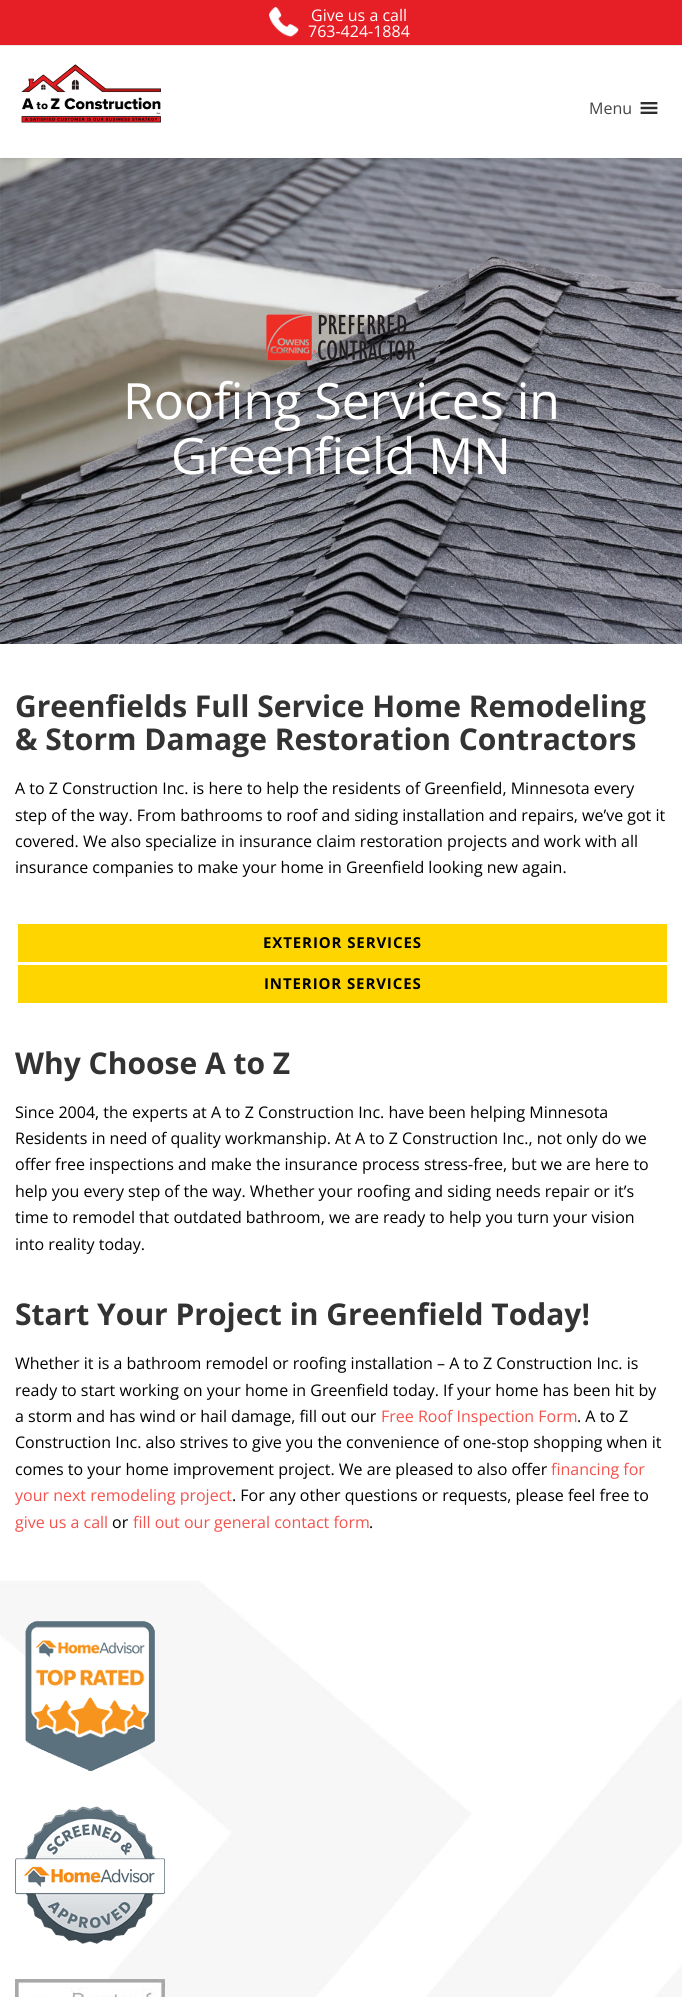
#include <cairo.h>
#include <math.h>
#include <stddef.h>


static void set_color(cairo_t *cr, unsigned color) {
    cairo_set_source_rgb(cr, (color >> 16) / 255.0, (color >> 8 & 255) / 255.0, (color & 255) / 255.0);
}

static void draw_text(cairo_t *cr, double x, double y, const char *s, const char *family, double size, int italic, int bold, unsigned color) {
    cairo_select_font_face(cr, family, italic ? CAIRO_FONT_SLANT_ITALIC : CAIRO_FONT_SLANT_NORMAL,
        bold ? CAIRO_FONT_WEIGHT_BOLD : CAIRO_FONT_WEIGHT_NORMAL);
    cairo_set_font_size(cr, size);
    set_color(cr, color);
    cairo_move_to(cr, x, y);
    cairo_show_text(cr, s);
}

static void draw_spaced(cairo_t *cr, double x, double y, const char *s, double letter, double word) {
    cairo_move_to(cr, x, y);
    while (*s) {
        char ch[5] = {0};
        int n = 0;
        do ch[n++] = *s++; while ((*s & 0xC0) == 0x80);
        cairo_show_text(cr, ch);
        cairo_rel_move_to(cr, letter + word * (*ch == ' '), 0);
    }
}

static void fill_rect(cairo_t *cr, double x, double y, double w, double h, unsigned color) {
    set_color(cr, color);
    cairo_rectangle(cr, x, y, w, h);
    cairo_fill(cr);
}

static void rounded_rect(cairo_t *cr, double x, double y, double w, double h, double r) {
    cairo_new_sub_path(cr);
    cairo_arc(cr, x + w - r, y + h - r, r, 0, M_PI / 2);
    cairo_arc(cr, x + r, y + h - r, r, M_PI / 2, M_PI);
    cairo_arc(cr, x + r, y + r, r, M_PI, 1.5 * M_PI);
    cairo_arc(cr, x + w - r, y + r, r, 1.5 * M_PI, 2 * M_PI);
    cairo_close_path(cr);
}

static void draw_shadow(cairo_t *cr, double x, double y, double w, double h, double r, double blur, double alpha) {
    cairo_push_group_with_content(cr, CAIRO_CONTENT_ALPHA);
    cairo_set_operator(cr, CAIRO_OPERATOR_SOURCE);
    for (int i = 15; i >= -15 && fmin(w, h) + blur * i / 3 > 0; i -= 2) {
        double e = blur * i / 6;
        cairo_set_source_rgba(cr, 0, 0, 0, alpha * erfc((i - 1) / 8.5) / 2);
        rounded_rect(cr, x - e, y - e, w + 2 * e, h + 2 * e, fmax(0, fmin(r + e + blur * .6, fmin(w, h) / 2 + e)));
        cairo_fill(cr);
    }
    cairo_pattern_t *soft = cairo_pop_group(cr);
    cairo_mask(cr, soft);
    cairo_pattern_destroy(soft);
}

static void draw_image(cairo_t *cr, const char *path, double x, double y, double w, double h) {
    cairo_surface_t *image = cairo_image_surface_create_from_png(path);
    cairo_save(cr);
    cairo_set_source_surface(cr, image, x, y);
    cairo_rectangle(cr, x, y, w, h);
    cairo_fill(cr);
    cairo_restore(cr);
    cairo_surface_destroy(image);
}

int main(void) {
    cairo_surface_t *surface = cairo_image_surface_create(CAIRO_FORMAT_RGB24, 682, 1997);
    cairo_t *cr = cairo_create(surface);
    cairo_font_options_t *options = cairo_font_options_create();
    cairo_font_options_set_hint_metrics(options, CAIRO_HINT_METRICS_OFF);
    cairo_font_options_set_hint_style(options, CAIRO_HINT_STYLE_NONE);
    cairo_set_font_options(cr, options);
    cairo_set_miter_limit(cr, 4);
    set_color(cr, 0xFFFFFF);
    cairo_paint(cr);
    fill_rect(cr, 0, 0, 682, 45, 0xE61F26);
    fill_rect(cr, 0, 45, 682, 1, 0xE8E8E8);
    draw_image(cr, "assets/img1.png", 269, 7, 30, 30);
    draw_text(cr, 311, 21, "Give us a call", "Open Sans", 16, 0, 0, 0xFFFFFF);
    draw_text(cr, 308, 37, "763-424-1884", "Open Sans", 16, 0, 0, 0xFFFFFF);
    draw_image(cr, "assets/img2.png", 21, 64, 140, 59);
    draw_text(cr, 589, 114, "Menu", "Open Sans", 16, 0, 0, 0x444444);
    draw_image(cr, "assets/img3.png", 640, 102, 18, 12);
    draw_image(cr, "assets/img4.png", 0, 158, 682, 486);
    cairo_save(cr);
    cairo_rectangle(cr, 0, 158, 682, 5);
    cairo_clip(cr);
    set_color(cr, 0x000000);
    draw_shadow(cr, 0, 154, 682, 5, 2.5, 2, 0.1);
    cairo_restore(cr);
    draw_image(cr, "assets/img5.png", 266, 314, 150, 47);
    draw_text(cr, 123, 419, "Roofing Services in", "Open Sans", 50, 0, 0, 0xFFFFFF);
    draw_text(cr, 171, 474, "Greenfield MN", "Open Sans", 50, 0, 0, 0xFFFFFF);
    draw_text(cr, 15, 717, "Greenfields Full Service Home Remodeling", "Open Sans", 30, 0, 1, 0x333333);
    draw_text(cr, 15, 750, "& Storm Damage Restoration Contractors", "Open Sans", 30, 0, 1, 0x333333);
    draw_text(cr, 15, 794, "A to Z Construction Inc. is here to help the residents of Greenfield, Minnesota every", "Open Sans", 16, 0, 0, 0x000000);
    draw_text(cr, 15, 821, "step of the way. From bathrooms to roof and siding installation and repairs, we’ve got it", "Open Sans", 16, 0, 0, 0x000000);
    draw_text(cr, 15, 847, "covered. We also specialize in insurance claim restoration projects and work with all", "Open Sans", 16, 0, 0, 0x000000);
    draw_text(cr, 15, 873, "insurance companies to make your home in Greenfield looking new again.", "Open Sans", 16, 0, 0, 0x000000);
    fill_rect(cr, 18, 924, 649, 38, 0xFFD500);
    cairo_select_font_face(cr, "Open Sans", CAIRO_FONT_SLANT_NORMAL, CAIRO_FONT_WEIGHT_BOLD);
    cairo_set_font_size(cr, 15);
    set_color(cr, 0x000000);
    draw_spaced(cr, 263, 948, "EXTERIOR SERVICES", 0.9, 0);
    fill_rect(cr, 18, 965, 649, 38, 0xFFD500);
    set_color(cr, 0x000000);
    draw_spaced(cr, 264, 989, "INTERIOR SERVICES", 0.9, 0);
    draw_text(cr, 15, 1074, "Why Choose A to Z", "Open Sans", 30, 0, 1, 0x333333);
    draw_text(cr, 15, 1118, "Since 2004, the experts at A to Z Construction Inc. have been helping Minnesota", "Open Sans", 16, 0, 0, 0x000000);
    draw_text(cr, 15, 1144, "Residents in need of quality workmanship. At A to Z Construction Inc., not only do we", "Open Sans", 16, 0, 0, 0x000000);
    draw_text(cr, 15, 1170, "offer free inspections and make the insurance process stress-free, but we are here to", "Open Sans", 16, 0, 0, 0x000000);
    draw_text(cr, 15, 1197, "help you every step of the way. Whether your roofing and siding needs repair or it’s", "Open Sans", 16, 0, 0, 0x000000);
    draw_text(cr, 15, 1223, "time to remodel that outdated bathroom, we are ready to help you turn your vision", "Open Sans", 16, 0, 0, 0x000000);
    draw_text(cr, 15, 1250, "into reality today.", "Open Sans", 16, 0, 0, 0x000000);
    draw_text(cr, 15, 1325, "Start Your Project in Greenfield Today!", "Open Sans", 30, 0, 1, 0x333333);
    draw_text(cr, 15, 1369, "Whether it is a bathroom remodel or roofing installation – A to Z Construction Inc. is", "Open Sans", 16, 0, 0, 0x000000);
    draw_text(cr, 15, 1396, "ready to start working on your home in Greenfield today. If your home has been hit by", "Open Sans", 16, 0, 0, 0x000000);
    draw_text(cr, 15, 1422, "a storm and has wind or hail damage, fill out our", "Open Sans", 16, 0, 0, 0x000000);
    draw_text(cr, 381, 1422, "Free Roof Inspection Form", "Open Sans", 16, 0, 0, 0xF4524D);
    draw_text(cr, 577, 1422, ". A to Z", "Open Sans", 16, 0, 0, 0x000000);
    draw_text(cr, 15, 1448, "Construction Inc. also strives to give you the convenience of one-stop shopping when it", "Open Sans", 16, 0, 0, 0x000000);
    draw_text(cr, 15, 1475, "comes to your home improvement project. We are pleased to also offer", "Open Sans", 16, 0, 0, 0x000000);
    draw_text(cr, 551, 1475, "financing for", "Open Sans", 16, 0, 0, 0xF4524D);
    draw_text(cr, 15, 1501, "your next remodeling project", "Open Sans", 16, 0, 0, 0xF4524D);
    draw_text(cr, 232, 1501, ". For any other questions or requests, please feel free to", "Open Sans", 16, 0, 0, 0x000000);
    draw_text(cr, 15, 1528, "give us a call", "Open Sans", 16, 0, 0, 0xF4524D);
    draw_text(cr, 112, 1528, "or", "Open Sans", 16, 0, 0, 0x000000);
    draw_text(cr, 133, 1528, "fill out our general contact form", "Open Sans", 16, 0, 0, 0xF4524D);
    draw_text(cr, 369, 1528, ".", "Open Sans", 16, 0, 0, 0x000000);
    draw_image(cr, "assets/img6.png", 0, 1580, 682, 417);
    draw_image(cr, "assets/img7.png", 25, 1621, 130, 150);
    draw_image(cr, "assets/img8.png", 15, 1806, 150, 138);
    draw_image(cr, "assets/img9.png", 15, 1979, 150, 18);
    cairo_surface_write_to_png(surface, "output.png");
    cairo_font_options_destroy(options);
    cairo_destroy(cr);
    cairo_surface_destroy(surface);
    return 0;
}
